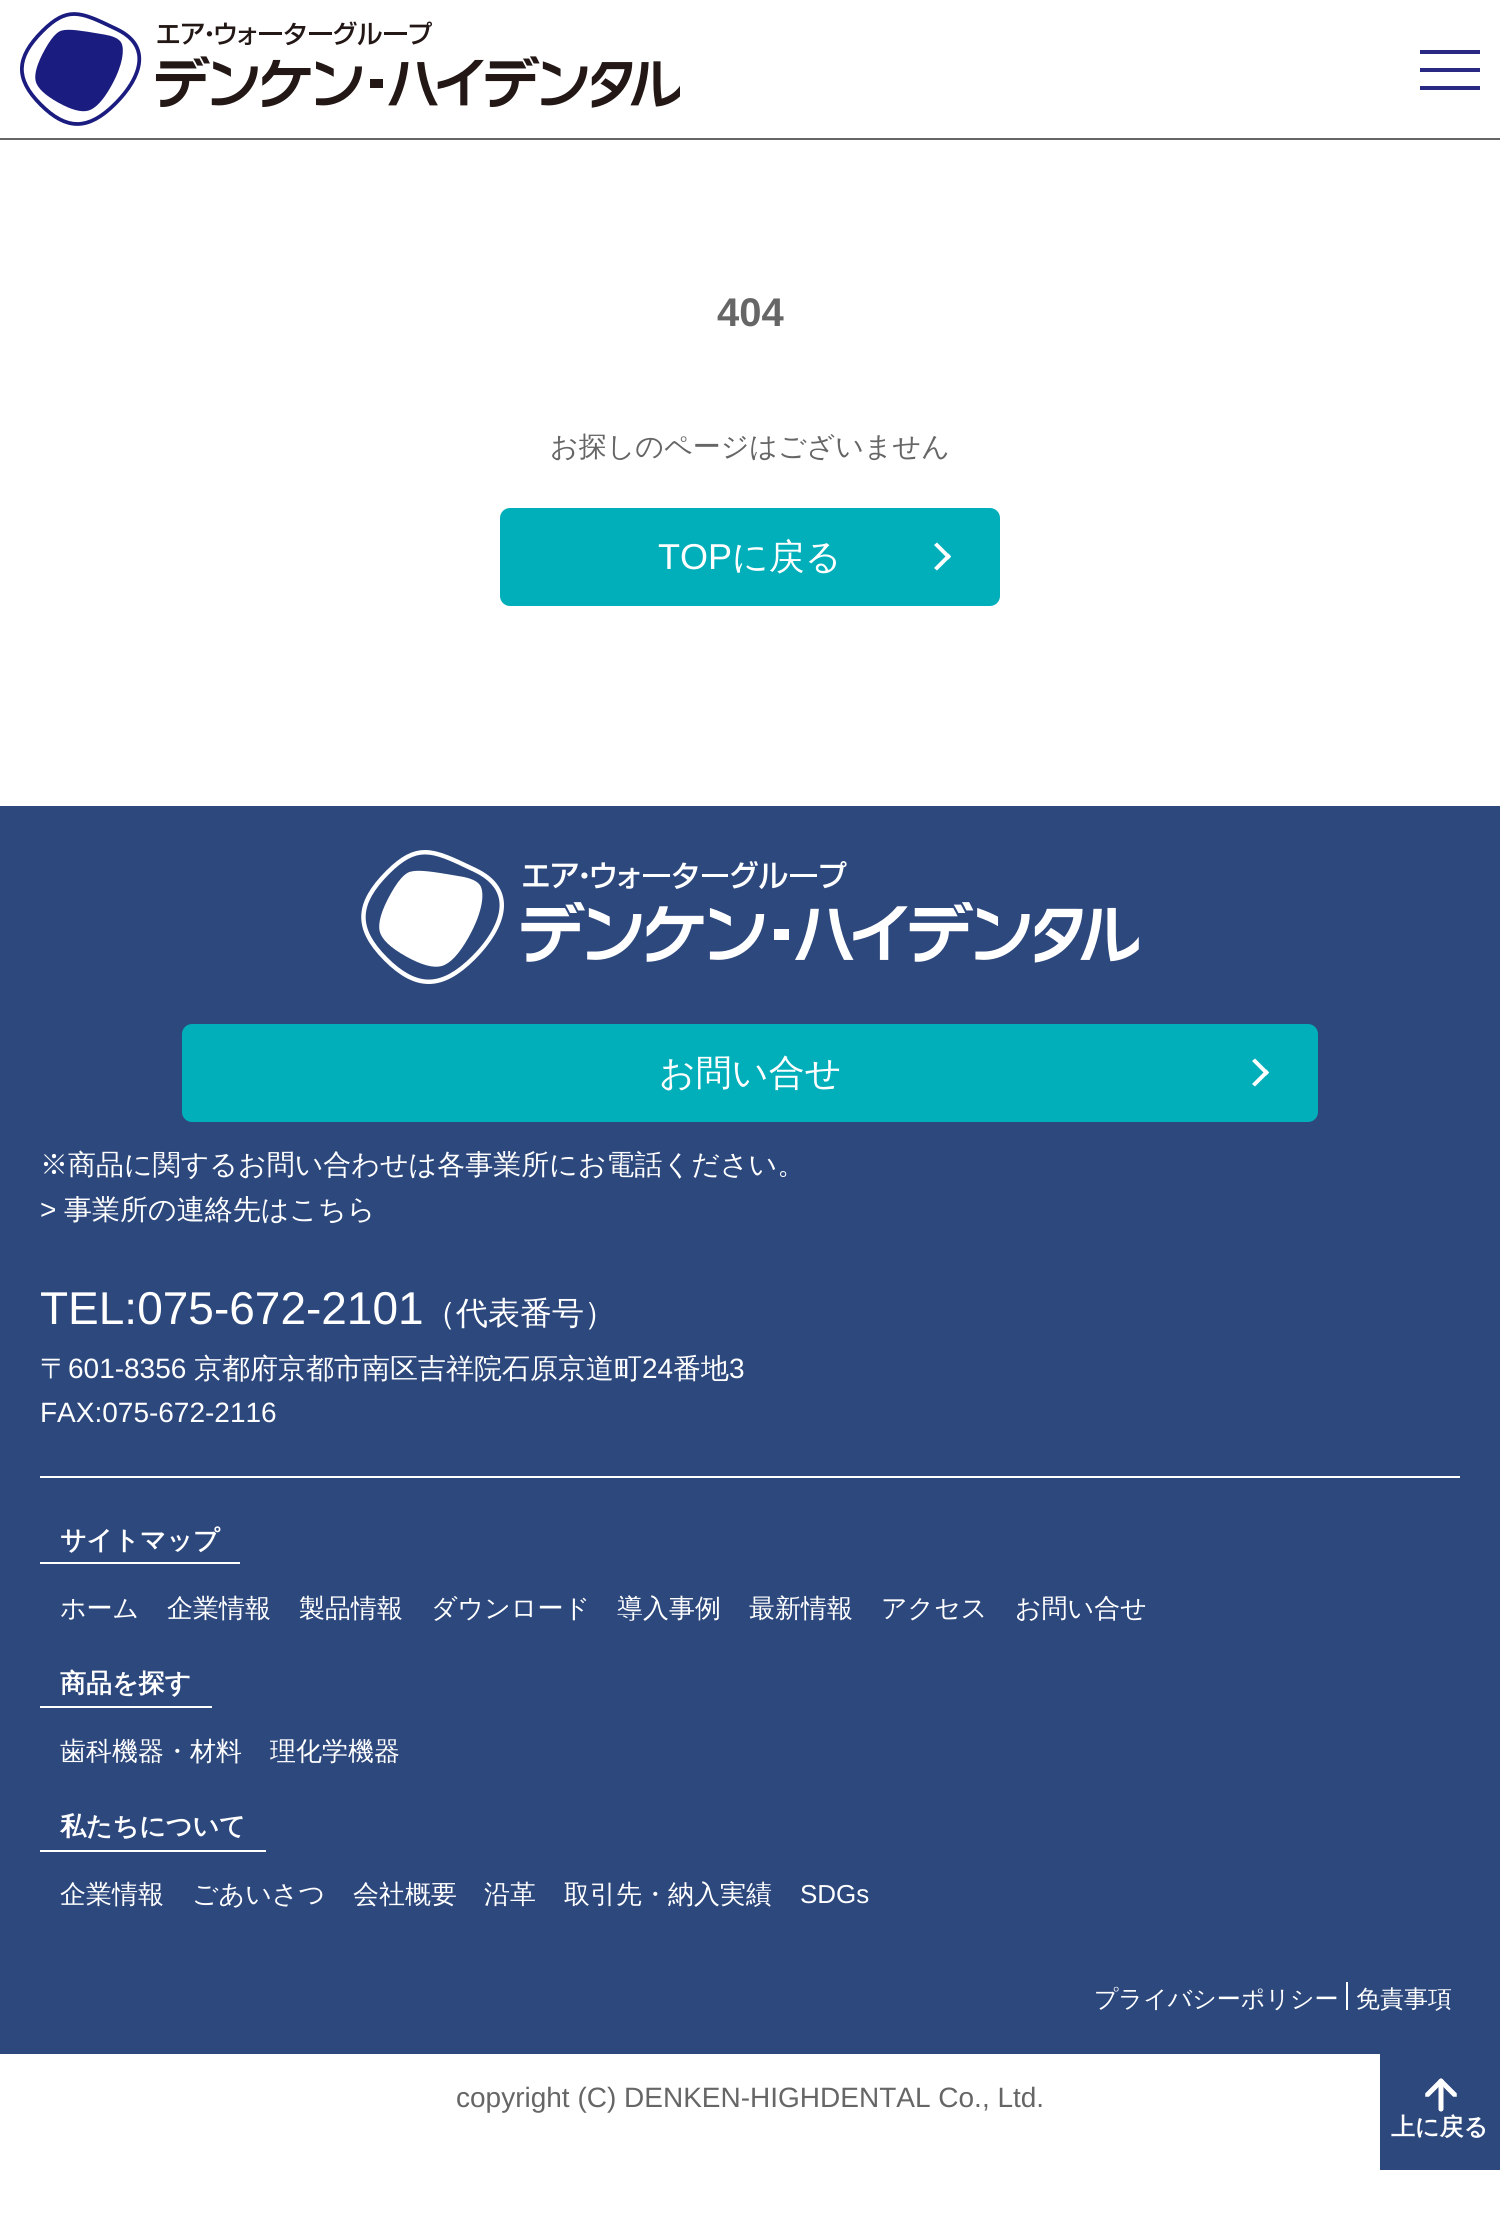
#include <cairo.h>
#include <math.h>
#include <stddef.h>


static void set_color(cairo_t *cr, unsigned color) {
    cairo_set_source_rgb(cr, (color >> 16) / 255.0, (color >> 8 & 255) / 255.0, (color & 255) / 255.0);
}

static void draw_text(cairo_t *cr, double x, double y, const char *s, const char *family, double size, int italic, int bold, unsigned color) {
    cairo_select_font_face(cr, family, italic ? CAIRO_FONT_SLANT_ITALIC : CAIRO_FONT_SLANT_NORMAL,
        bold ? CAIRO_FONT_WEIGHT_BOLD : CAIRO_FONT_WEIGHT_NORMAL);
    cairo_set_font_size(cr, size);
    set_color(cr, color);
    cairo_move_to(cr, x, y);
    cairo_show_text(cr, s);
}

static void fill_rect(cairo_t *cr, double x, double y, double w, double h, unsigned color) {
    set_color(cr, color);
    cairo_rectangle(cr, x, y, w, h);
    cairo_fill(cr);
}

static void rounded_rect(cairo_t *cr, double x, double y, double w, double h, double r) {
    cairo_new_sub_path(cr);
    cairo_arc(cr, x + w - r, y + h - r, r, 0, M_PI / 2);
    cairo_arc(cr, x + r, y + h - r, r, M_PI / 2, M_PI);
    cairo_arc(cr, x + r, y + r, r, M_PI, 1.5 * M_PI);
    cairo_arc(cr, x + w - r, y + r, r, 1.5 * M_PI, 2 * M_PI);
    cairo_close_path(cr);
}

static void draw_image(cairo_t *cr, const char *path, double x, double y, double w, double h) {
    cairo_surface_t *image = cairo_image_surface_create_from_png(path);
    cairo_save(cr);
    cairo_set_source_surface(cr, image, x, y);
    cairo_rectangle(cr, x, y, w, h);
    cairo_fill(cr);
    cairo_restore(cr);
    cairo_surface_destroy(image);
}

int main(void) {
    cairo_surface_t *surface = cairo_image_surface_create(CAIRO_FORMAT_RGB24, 1500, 2229);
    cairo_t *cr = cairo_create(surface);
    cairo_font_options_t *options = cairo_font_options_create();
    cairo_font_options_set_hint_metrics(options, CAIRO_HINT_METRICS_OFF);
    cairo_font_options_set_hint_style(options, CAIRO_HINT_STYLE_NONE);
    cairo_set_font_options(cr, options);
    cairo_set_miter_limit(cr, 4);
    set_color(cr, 0xFFFFFF);
    cairo_paint(cr);
    fill_rect(cr, 0, 138, 1500, 2, 0x666666);
    draw_image(cr, "assets/img1.png", 20, 12, 660, 114);
    fill_rect(cr, 1420, 50, 60, 4, 0x292983);
    fill_rect(cr, 1420, 68, 60, 4, 0x292983);
    fill_rect(cr, 1420, 86, 60, 4, 0x292983);
    draw_text(cr, 717, 326, "404", "Liberation Sans", 40, 0, 1, 0x666666);
    draw_text(cr, 550, 456, "お探しのページはございません", "WenQuanYi Zen Hei Medium", 28, 0, 0, 0x666666);
    set_color(cr, 0x00AFBA);
    rounded_rect(cr, 500, 508, 500, 98, 10);
    cairo_fill(cr);
    draw_text(cr, 658, 569, "TOP", "Liberation Sans", 36, 0, 0, 0xFFFFFF);
    draw_text(cr, 732, 569, "に戻る", "WenQuanYi Zen Hei Medium", 36, 0, 0, 0xFFFFFF);
    cairo_new_path(cr);
    cairo_move_to(cr, 937, 542.5);
    cairo_line_to(cr, 951, 556.5);
    cairo_line_to(cr, 948.5, 559.5);
    cairo_line_to(cr, 934, 545);
    cairo_close_path(cr);
    cairo_fill(cr);
    cairo_new_path(cr);
    cairo_move_to(cr, 948.5, 553.5);
    cairo_line_to(cr, 951, 556.5);
    cairo_line_to(cr, 937, 570.5);
    cairo_line_to(cr, 934, 568);
    cairo_close_path(cr);
    cairo_fill(cr);
    fill_rect(cr, 0, 806, 1500, 1248, 0x2D487D);
    draw_image(cr, "assets/img2.png", 361, 850, 778, 134);
    set_color(cr, 0x00AFBA);
    rounded_rect(cr, 182, 1024, 1136, 98, 10);
    cairo_fill(cr);
    draw_text(cr, 659, 1085, "お問い合せ", "WenQuanYi Zen Hei Medium", 36, 0, 0, 0xFFFFFF);
    cairo_new_path(cr);
    cairo_move_to(cr, 1255, 1058.5);
    cairo_line_to(cr, 1269, 1072.5);
    cairo_line_to(cr, 1266.5, 1075.5);
    cairo_line_to(cr, 1252, 1061);
    cairo_close_path(cr);
    cairo_fill(cr);
    cairo_new_path(cr);
    cairo_move_to(cr, 1266.5, 1069.5);
    cairo_line_to(cr, 1269, 1072.5);
    cairo_line_to(cr, 1255, 1086.5);
    cairo_line_to(cr, 1252, 1084);
    cairo_close_path(cr);
    cairo_fill(cr);
    draw_text(cr, 40, 1174, "※商品に関するお問い合わせは各事業所にお電話ください。", "WenQuanYi Zen Hei Medium", 28, 0, 0, 0xFFFFFF);
    draw_text(cr, 40, 1219, ">", "Liberation Sans", 28, 0, 0, 0xFFFFFF);
    draw_text(cr, 64, 1219, "事業所の連絡先はこちら", "WenQuanYi Zen Hei Medium", 28, 0, 0, 0xFFFFFF);
    draw_text(cr, 40, 1324, "TEL:075-672-2101", "Liberation Sans", 46, 0, 0, 0xFFFFFF);
    draw_text(cr, 424, 1324, "（代表番号）", "WenQuanYi Zen Hei Medium", 32, 0, 0, 0xFFFFFF);
    draw_text(cr, 40, 1378, "〒", "WenQuanYi Zen Hei Medium", 28, 0, 0, 0xFFFFFF);
    draw_text(cr, 68, 1378, "601-8356", "Liberation Sans", 28, 0, 0, 0xFFFFFF);
    draw_text(cr, 194, 1378, "京都府京都市南区吉祥院石原京道町", "WenQuanYi Zen Hei Medium", 28, 0, 0, 0xFFFFFF);
    draw_text(cr, 642, 1378, "24", "Liberation Sans", 28, 0, 0, 0xFFFFFF);
    draw_text(cr, 673, 1378, "番地", "WenQuanYi Zen Hei Medium", 28, 0, 0, 0xFFFFFF);
    draw_text(cr, 729, 1378, "3", "Liberation Sans", 28, 0, 0, 0xFFFFFF);
    draw_text(cr, 40, 1422, "FAX:075-672-2116", "Liberation Sans", 28, 0, 0, 0xFFFFFF);
    fill_rect(cr, 40, 1476, 1420, 2, 0xFFFFFF);
    fill_rect(cr, 40, 1562, 200, 2, 0xFFFFFF);
    draw_text(cr, 60, 1549, "サイトマップ", "WenQuanYi Zen Hei", 26, 0, 1, 0xFFFFFF);
    draw_text(cr, 60, 1617, "ホーム", "WenQuanYi Zen Hei Medium", 26, 0, 0, 0xFFFFFF);
    draw_text(cr, 167, 1617, "企業情報", "WenQuanYi Zen Hei Medium", 26, 0, 0, 0xFFFFFF);
    draw_text(cr, 299, 1617, "製品情報", "WenQuanYi Zen Hei Medium", 26, 0, 0, 0xFFFFFF);
    draw_text(cr, 431, 1617, "ダウンロード", "WenQuanYi Zen Hei Medium", 26, 0, 0, 0xFFFFFF);
    draw_text(cr, 617, 1617, "導入事例", "WenQuanYi Zen Hei Medium", 26, 0, 0, 0xFFFFFF);
    draw_text(cr, 749, 1617, "最新情報", "WenQuanYi Zen Hei Medium", 26, 0, 0, 0xFFFFFF);
    draw_text(cr, 881, 1617, "アクセス", "WenQuanYi Zen Hei Medium", 26, 0, 0, 0xFFFFFF);
    draw_text(cr, 1015, 1617, "お問い合せ", "WenQuanYi Zen Hei Medium", 26, 0, 0, 0xFFFFFF);
    fill_rect(cr, 40, 1706, 172, 2, 0xFFFFFF);
    draw_text(cr, 60, 1692, "商品を探す", "WenQuanYi Zen Hei", 26, 0, 1, 0xFFFFFF);
    draw_text(cr, 60, 1760, "歯科機器・材料", "WenQuanYi Zen Hei Medium", 26, 0, 0, 0xFFFFFF);
    draw_text(cr, 270, 1760, "理化学機器", "WenQuanYi Zen Hei Medium", 26, 0, 0, 0xFFFFFF);
    fill_rect(cr, 40, 1850, 226, 2, 0xFFFFFF);
    draw_text(cr, 60, 1835, "私たちについて", "WenQuanYi Zen Hei", 26, 0, 1, 0xFFFFFF);
    draw_text(cr, 60, 1903, "企業情報", "WenQuanYi Zen Hei Medium", 26, 0, 0, 0xFFFFFF);
    draw_text(cr, 192, 1903, "ごあいさつ", "WenQuanYi Zen Hei Medium", 26, 0, 0, 0xFFFFFF);
    draw_text(cr, 353, 1903, "会社概要", "WenQuanYi Zen Hei Medium", 26, 0, 0, 0xFFFFFF);
    draw_text(cr, 484, 1903, "沿革", "WenQuanYi Zen Hei Medium", 26, 0, 0, 0xFFFFFF);
    draw_text(cr, 564, 1903, "取引先・納入実績", "WenQuanYi Zen Hei Medium", 26, 0, 0, 0xFFFFFF);
    draw_text(cr, 800, 1903, "SDGs", "Liberation Sans", 26, 0, 0, 0xFFFFFF);
    fill_rect(cr, 1346, 1982, 2, 28, 0xFFFFFF);
    draw_text(cr, 1094, 2007, "プライバシーポリシー", "WenQuanYi Zen Hei Medium", 24, 0, 0, 0xFFFFFF);
    draw_text(cr, 1356, 2007, "免責事項", "WenQuanYi Zen Hei Medium", 24, 0, 0, 0xFFFFFF);
    draw_text(cr, 456, 2107, "copyright (C) DENKEN-HIGHDENTAL Co., Ltd.", "Liberation Sans", 28, 0, 0, 0x666666);
    fill_rect(cr, 1380, 2054, 120, 116, 0x2D487D);
    draw_image(cr, "assets/img3.png", 1425, 2078, 32, 34);
    draw_text(cr, 1391, 2135, "上に戻る", "WenQuanYi Zen Hei", 24, 0, 1, 0xFFFFFF);
    cairo_surface_write_to_png(surface, "output.png");
    cairo_font_options_destroy(options);
    cairo_destroy(cr);
    cairo_surface_destroy(surface);
    return 0;
}
